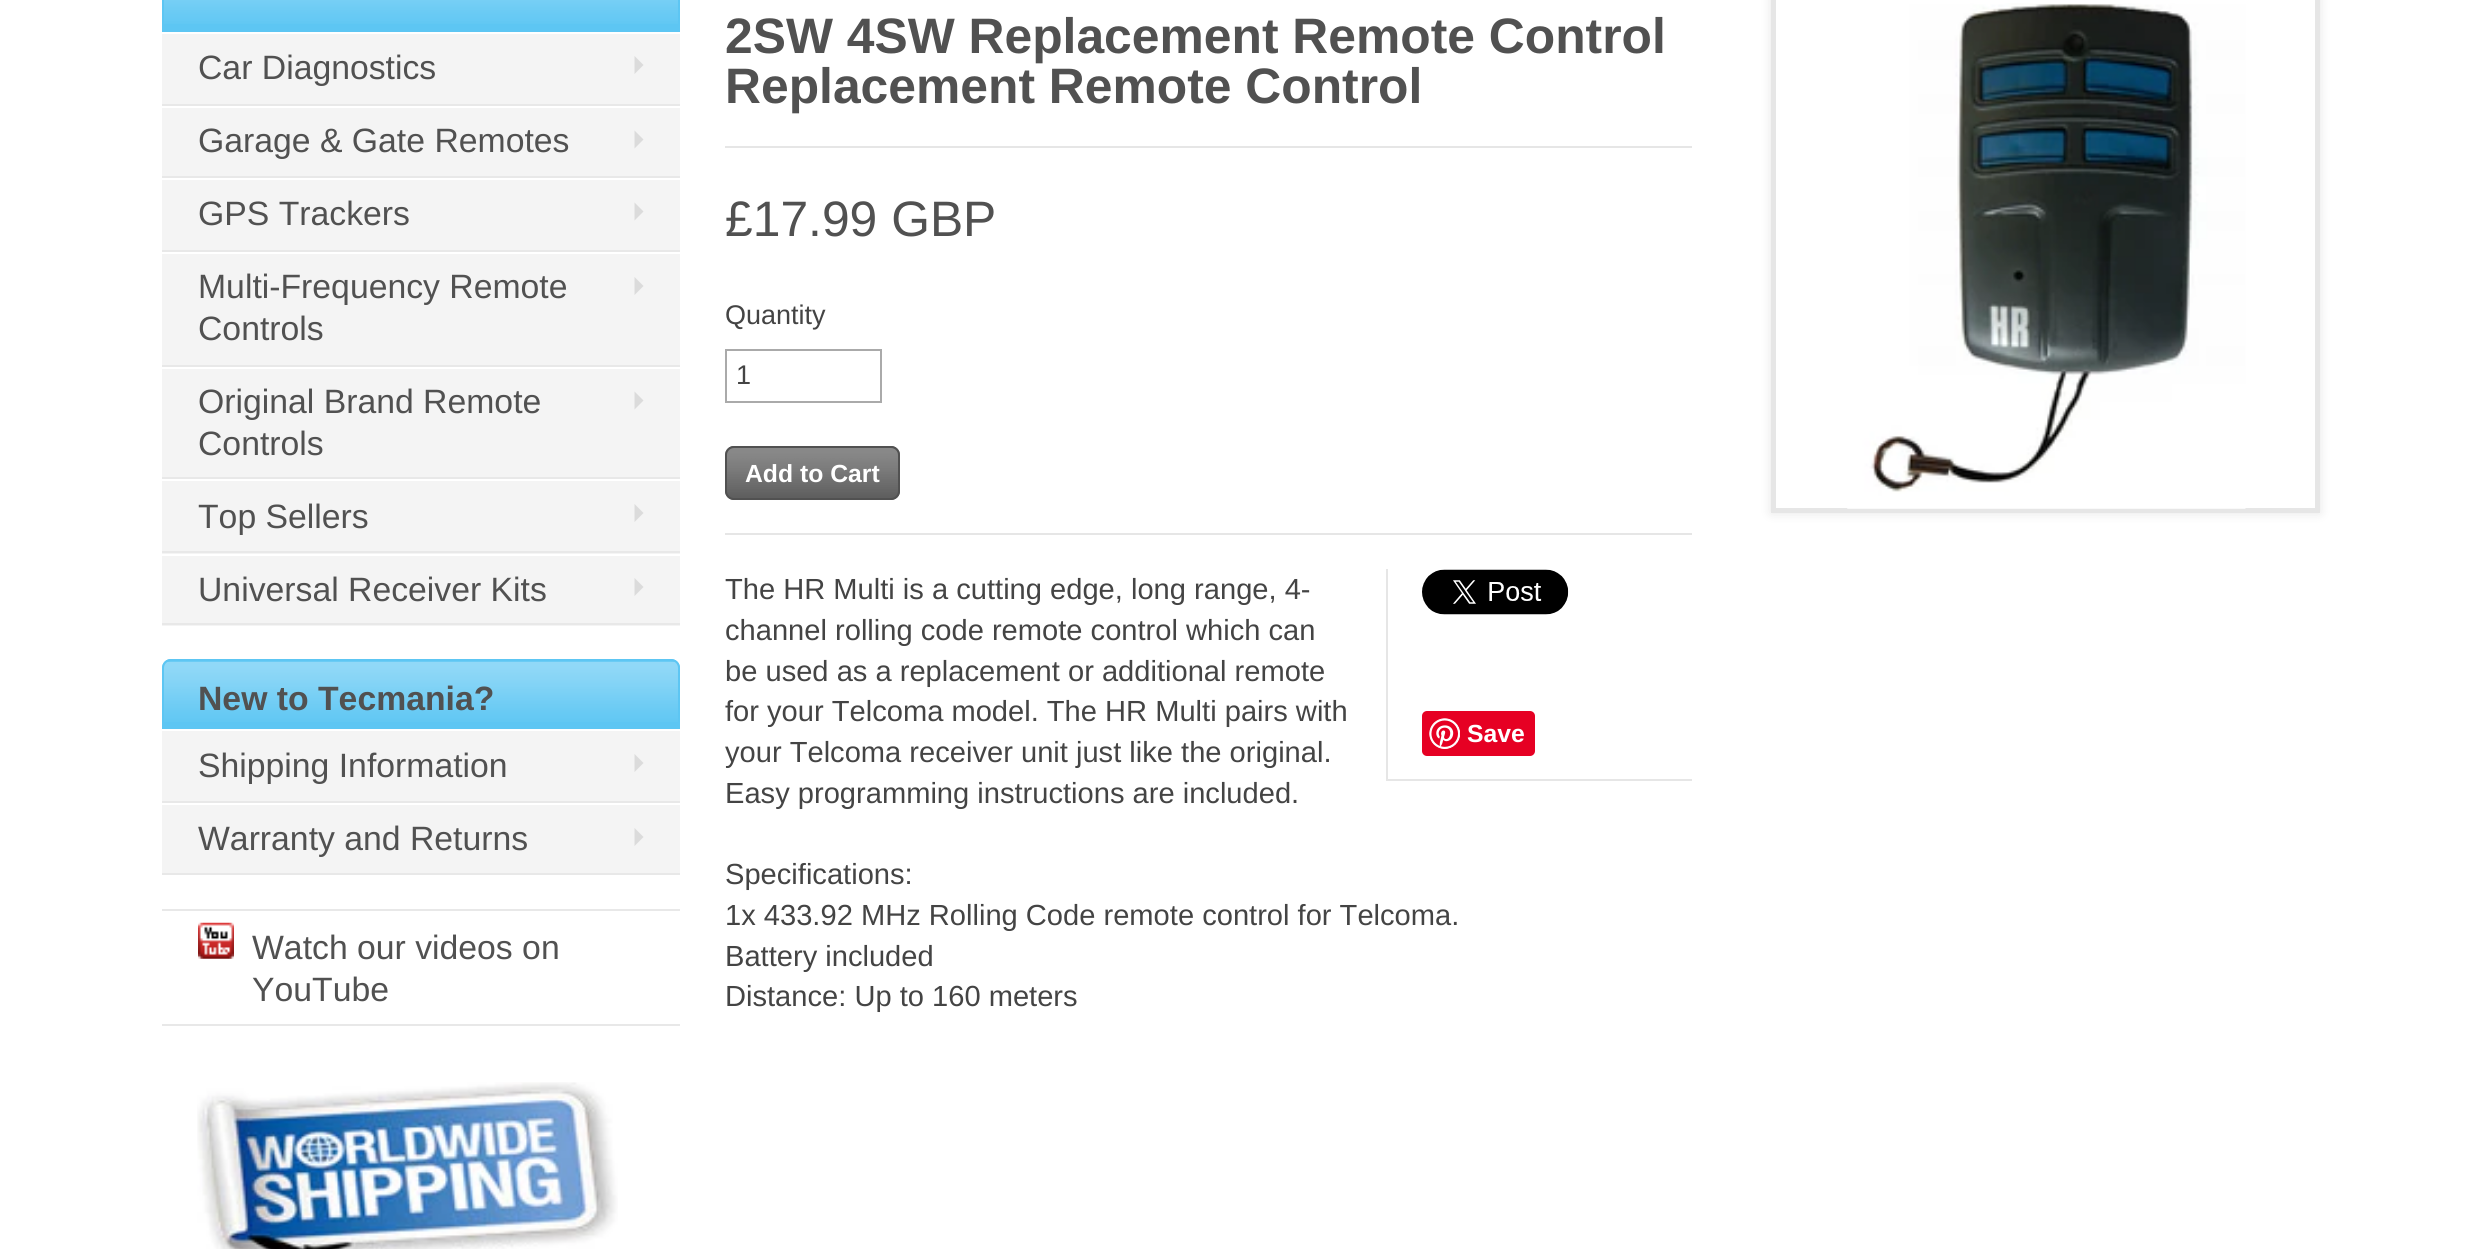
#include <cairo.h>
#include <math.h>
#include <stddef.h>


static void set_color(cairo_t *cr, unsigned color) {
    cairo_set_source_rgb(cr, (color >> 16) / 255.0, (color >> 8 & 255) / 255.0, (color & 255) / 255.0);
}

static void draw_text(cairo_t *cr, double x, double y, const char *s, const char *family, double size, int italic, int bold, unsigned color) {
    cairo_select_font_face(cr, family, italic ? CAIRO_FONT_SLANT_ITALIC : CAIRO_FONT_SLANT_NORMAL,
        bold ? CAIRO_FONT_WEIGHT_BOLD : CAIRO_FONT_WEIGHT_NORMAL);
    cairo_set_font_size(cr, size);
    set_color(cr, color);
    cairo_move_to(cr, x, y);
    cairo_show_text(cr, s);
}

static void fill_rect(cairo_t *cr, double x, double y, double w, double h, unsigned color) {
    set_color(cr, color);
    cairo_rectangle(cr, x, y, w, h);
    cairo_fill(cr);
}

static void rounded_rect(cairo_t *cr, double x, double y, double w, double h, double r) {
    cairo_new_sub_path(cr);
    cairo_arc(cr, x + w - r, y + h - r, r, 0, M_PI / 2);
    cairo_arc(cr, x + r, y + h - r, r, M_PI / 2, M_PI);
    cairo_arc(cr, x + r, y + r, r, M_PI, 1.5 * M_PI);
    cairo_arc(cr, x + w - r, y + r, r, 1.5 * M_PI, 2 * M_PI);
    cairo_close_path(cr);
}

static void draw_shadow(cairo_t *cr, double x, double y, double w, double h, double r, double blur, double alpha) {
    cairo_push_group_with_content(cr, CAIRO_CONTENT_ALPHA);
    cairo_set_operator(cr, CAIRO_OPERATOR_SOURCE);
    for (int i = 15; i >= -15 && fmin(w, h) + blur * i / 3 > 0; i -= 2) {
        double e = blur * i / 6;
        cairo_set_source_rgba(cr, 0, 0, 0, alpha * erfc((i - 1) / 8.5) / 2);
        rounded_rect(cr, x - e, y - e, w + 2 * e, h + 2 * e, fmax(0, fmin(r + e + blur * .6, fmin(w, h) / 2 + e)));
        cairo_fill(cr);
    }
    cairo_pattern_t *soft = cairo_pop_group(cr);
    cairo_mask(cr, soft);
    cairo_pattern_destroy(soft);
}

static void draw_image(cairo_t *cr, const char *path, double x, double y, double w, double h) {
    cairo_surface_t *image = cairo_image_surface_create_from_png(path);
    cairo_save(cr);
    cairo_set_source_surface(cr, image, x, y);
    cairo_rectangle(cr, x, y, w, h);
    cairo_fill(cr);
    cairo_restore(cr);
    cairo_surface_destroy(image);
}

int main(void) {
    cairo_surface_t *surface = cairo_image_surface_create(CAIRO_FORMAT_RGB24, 2484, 1249);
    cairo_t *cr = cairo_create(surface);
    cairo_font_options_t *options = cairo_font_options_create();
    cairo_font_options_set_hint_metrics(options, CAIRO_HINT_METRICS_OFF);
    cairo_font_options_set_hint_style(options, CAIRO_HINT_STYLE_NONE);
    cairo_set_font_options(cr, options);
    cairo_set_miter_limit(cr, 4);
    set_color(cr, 0xFFFFFF);
    cairo_paint(cr);
    fill_rect(cr, 164, 0, 514, 30, 0x5DC6F3);
    draw_image(cr, "assets/img1.png", 164, 0, 514, 24);
    cairo_rectangle(cr, 163, -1, 516, 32);
    cairo_stroke(cr);
    fill_rect(cr, 162, 34, 518, 70, 0xF4F4F4);
    fill_rect(cr, 162, 104, 518, 2, 0xE8E8E8);
    draw_text(cr, 198, 79, "Car Diagnostics", "Liberation Sans", 33.75, 0, 0, 0x515151);
    set_color(cr, 0xDBDBDB);
    cairo_new_path(cr);
    cairo_move_to(cr, 634.5, 74);
    cairo_line_to(cr, 634.5, 56);
    cairo_line_to(cr, 643.5, 65);
    cairo_close_path(cr);
    cairo_fill(cr);
    fill_rect(cr, 162, 108, 518, 68, 0xF4F4F4);
    fill_rect(cr, 162, 176, 518, 2, 0xE8E8E8);
    draw_text(cr, 198, 152, "Garage & Gate Remotes", "Liberation Sans", 33.75, 0, 0, 0x515151);
    set_color(cr, 0xDBDBDB);
    cairo_new_path(cr);
    cairo_move_to(cr, 634.5, 148.5);
    cairo_line_to(cr, 634.5, 130.5);
    cairo_line_to(cr, 643.5, 139.5);
    cairo_close_path(cr);
    cairo_fill(cr);
    fill_rect(cr, 162, 180, 518, 70, 0xF4F4F4);
    fill_rect(cr, 162, 250, 518, 2, 0xE8E8E8);
    draw_text(cr, 198, 225, "GPS Trackers", "Liberation Sans", 33.75, 0, 0, 0x515151);
    set_color(cr, 0xDBDBDB);
    cairo_new_path(cr);
    cairo_move_to(cr, 634.5, 220.5);
    cairo_line_to(cr, 634.5, 202.5);
    cairo_line_to(cr, 643.5, 211.5);
    cairo_close_path(cr);
    cairo_fill(cr);
    fill_rect(cr, 162, 254, 518, 111, 0xF4F4F4);
    fill_rect(cr, 162, 365, 518, 2, 0xE8E8E8);
    draw_text(cr, 198, 298, "Multi-Frequency Remote", "Liberation Sans", 33.75, 0, 0, 0x515151);
    set_color(cr, 0xDBDBDB);
    cairo_new_path(cr);
    cairo_move_to(cr, 634.5, 295);
    cairo_line_to(cr, 634.5, 277);
    cairo_line_to(cr, 643.5, 286);
    cairo_close_path(cr);
    cairo_fill(cr);
    draw_text(cr, 198, 340, "Controls", "Liberation Sans", 33.75, 0, 0, 0x515151);
    fill_rect(cr, 162, 369, 518, 108, 0xF4F4F4);
    fill_rect(cr, 162, 477, 518, 2, 0xE8E8E8);
    draw_text(cr, 198, 413, "Original Brand Remote", "Liberation Sans", 33.75, 0, 0, 0x515151);
    set_color(cr, 0xDBDBDB);
    cairo_new_path(cr);
    cairo_move_to(cr, 634.5, 409.5);
    cairo_line_to(cr, 634.5, 391.5);
    cairo_line_to(cr, 643.5, 400.5);
    cairo_close_path(cr);
    cairo_fill(cr);
    draw_text(cr, 198, 455, "Controls", "Liberation Sans", 33.75, 0, 0, 0x515151);
    fill_rect(cr, 162, 481, 518, 73, 0xF4F4F4);
    fill_rect(cr, 162, 551, 518, 2, 0xE8E8E8);
    draw_text(cr, 198, 528, "Top Sellers", "Liberation Sans", 33.75, 0, 0, 0x515151);
    set_color(cr, 0xDBDBDB);
    cairo_new_path(cr);
    cairo_move_to(cr, 634.5, 522);
    cairo_line_to(cr, 634.5, 504);
    cairo_line_to(cr, 643.5, 513);
    cairo_close_path(cr);
    cairo_fill(cr);
    fill_rect(cr, 162, 556, 518, 70, 0xF4F4F4);
    fill_rect(cr, 162, 623, 518, 2, 0xE8E8E8);
    draw_text(cr, 198, 601, "Universal Receiver Kits", "Liberation Sans", 33.75, 0, 0, 0x515151);
    set_color(cr, 0xDBDBDB);
    cairo_new_path(cr);
    cairo_move_to(cr, 634.5, 596);
    cairo_line_to(cr, 634.5, 578);
    cairo_line_to(cr, 643.5, 587);
    cairo_close_path(cr);
    cairo_fill(cr);
    set_color(cr, 0x5DC6F3);
    cairo_new_path(cr);
    cairo_move_to(cr, 171, 659);
    cairo_line_to(cr, 671, 659);
    cairo_curve_to(cr, 676, 659, 680, 663, 680, 668);
    cairo_line_to(cr, 680, 729);
    cairo_line_to(cr, 162, 729);
    cairo_line_to(cr, 162, 668);
    cairo_curve_to(cr, 162, 663, 166, 659, 171, 659);
    cairo_close_path(cr);
    cairo_fill(cr);
    draw_image(cr, "assets/img2.png", 162, 661, 518, 61);
    cairo_new_path(cr);
    cairo_move_to(cr, 171, 660);
    cairo_line_to(cr, 671, 660);
    cairo_curve_to(cr, 675.5, 660, 679, 663.5, 679, 668);
    cairo_line_to(cr, 679, 728);
    cairo_line_to(cr, 163, 728);
    cairo_line_to(cr, 163, 668);
    cairo_curve_to(cr, 163, 663.5, 166.5, 660, 171, 660);
    cairo_close_path(cr);
    cairo_stroke(cr);
    draw_text(cr, 198, 710, "New to Tecmania?", "Liberation Sans", 33.75, 0, 1, 0x515151);
    fill_rect(cr, 162, 731, 518, 70, 0xF4F4F4);
    fill_rect(cr, 162, 801, 518, 2, 0xE8E8E8);
    draw_text(cr, 198, 777, "Shipping Information", "Liberation Sans", 33.75, 0, 0, 0x515151);
    set_color(cr, 0xDBDBDB);
    cairo_new_path(cr);
    cairo_move_to(cr, 634.5, 772);
    cairo_line_to(cr, 634.5, 754);
    cairo_line_to(cr, 643.5, 763);
    cairo_close_path(cr);
    cairo_fill(cr);
    fill_rect(cr, 162, 805, 518, 68, 0xF4F4F4);
    fill_rect(cr, 162, 873, 518, 2, 0xE8E8E8);
    draw_text(cr, 198, 850, "Warranty and Returns", "Liberation Sans", 33.75, 0, 0, 0x515151);
    set_color(cr, 0xDBDBDB);
    cairo_new_path(cr);
    cairo_move_to(cr, 634.5, 846);
    cairo_line_to(cr, 634.5, 828);
    cairo_line_to(cr, 643.5, 837);
    cairo_close_path(cr);
    cairo_fill(cr);
    fill_rect(cr, 162, 909, 518, 2, 0xE8E8E8);
    draw_image(cr, "assets/img3.png", 198, 922, 36, 37);
    fill_rect(cr, 162, 1024, 518, 2, 0xE8E8E8);
    draw_text(cr, 252, 959, "Watch our videos on", "Liberation Sans", 33.75, 0, 0, 0x515151);
    draw_text(cr, 252, 1001, "YouTube", "Liberation Sans", 33.75, 0, 0, 0x515151);
    draw_image(cr, "assets/img4.png", 197, 1082, 421, 167);
    fill_rect(cr, 725, 146, 967, 2, 0xE6E6E6);
    draw_text(cr, 725, 53, "2SW 4SW Replacement Remote Control", "Liberation Sans", 49.8, 0, 1, 0x515151);
    draw_text(cr, 725, 103, "Replacement Remote Control", "Liberation Sans", 49.8, 0, 1, 0x515151);
    fill_rect(cr, 725, 533, 967, 2, 0xE6E6E6);
    draw_text(cr, 725, 236, "£17.99 GBP", "Liberation Sans", 49.8, 0, 0, 0x515151);
    draw_text(cr, 725, 324, "Quantity", "Liberation Sans", 27, 0, 0, 0x444444);
    cairo_rectangle(cr, 726, 350, 155, 52);
    set_color(cr, 0xAAAAAA);
    cairo_stroke(cr);
    draw_text(cr, 736, 384, "1", "Liberation Sans", 27, 0, 0, 0x444444);
    set_color(cr, 0x515151);
    rounded_rect(cr, 725, 446, 175, 54, 9);
    cairo_fill(cr);
    draw_image(cr, "assets/img5.png", 725, 448, 175, 52);
    rounded_rect(cr, 726, 447, 173, 52, 8);
    cairo_stroke(cr);
    draw_text(cr, 745, 482, "Add to Cart", "Liberation Sans", 24.75, 0, 1, 0xFFFFFF);
    draw_text(cr, 725, 599, "The HR Multi is a cutting edge, long range, 4-", "Liberation Sans", 29.1, 0, 0, 0x444444);
    draw_text(cr, 725, 640, "channel rolling code remote control which can", "Liberation Sans", 29.1, 0, 0, 0x444444);
    draw_text(cr, 725, 681, "be used as a replacement or additional remote", "Liberation Sans", 29.1, 0, 0, 0x444444);
    draw_text(cr, 725, 721, "for your Telcoma model. The HR Multi pairs with", "Liberation Sans", 29.1, 0, 0, 0x444444);
    draw_text(cr, 725, 762, "your Telcoma receiver unit just like the original.", "Liberation Sans", 29.1, 0, 0, 0x444444);
    draw_text(cr, 725, 803, "Easy programming instructions are included.", "Liberation Sans", 29.1, 0, 0, 0x444444);
    draw_text(cr, 725, 884, "Specifications:", "Liberation Sans", 29.1, 0, 0, 0x444444);
    draw_text(cr, 725, 925, "1x 433.92 MHz Rolling Code remote control for Telcoma.", "Liberation Sans", 29.1, 0, 0, 0x444444);
    draw_text(cr, 725, 966, "Battery included", "Liberation Sans", 29.1, 0, 0, 0x444444);
    draw_text(cr, 725, 1006, "Distance: Up to 160 meters", "Liberation Sans", 29.1, 0, 0, 0x444444);
    fill_rect(cr, 1386, 779, 306, 2, 0xE6E6E6);
    fill_rect(cr, 1386, 569, 2, 212, 0xE6E6E6);
    draw_image(cr, "assets/img6.png", 1422, 569, 147, 46);
    set_color(cr, 0xE60023);
    rounded_rect(cr, 1422, 711, 113, 45, 5);
    cairo_fill(cr);
    draw_image(cr, "assets/img7.png", 1429, 718, 31, 31);
    draw_text(cr, 1467, 742, "Save", "Liberation Sans", 24.75, 0, 1, 0xFFFFFF);
    cairo_save(cr);
    cairo_set_fill_rule(cr, CAIRO_FILL_RULE_EVEN_ODD);
    cairo_new_path(cr);
    cairo_move_to(cr, 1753, 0);
    cairo_line_to(cr, 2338, 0);
    cairo_line_to(cr, 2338, 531);
    cairo_line_to(cr, 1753, 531);
    cairo_close_path(cr);
    cairo_move_to(cr, 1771, -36);
    cairo_line_to(cr, 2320, -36);
    cairo_line_to(cr, 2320, 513);
    cairo_line_to(cr, 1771, 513);
    cairo_close_path(cr);
    cairo_clip(cr);
    set_color(cr, 0x000000);
    draw_shadow(cr, 1771, -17, 549, 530, 0, 5.5, 0.1);
    cairo_restore(cr);
    cairo_rectangle(cr, 1773.5, -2.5, 544, 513);
    set_color(cr, 0xE6E6E6);
    cairo_set_line_width(cr, 5);
    cairo_stroke(cr);
    draw_image(cr, "assets/img8.png", 1847, 3, 399, 506);
    cairo_surface_write_to_png(surface, "output.png");
    cairo_font_options_destroy(options);
    cairo_destroy(cr);
    cairo_surface_destroy(surface);
    return 0;
}
